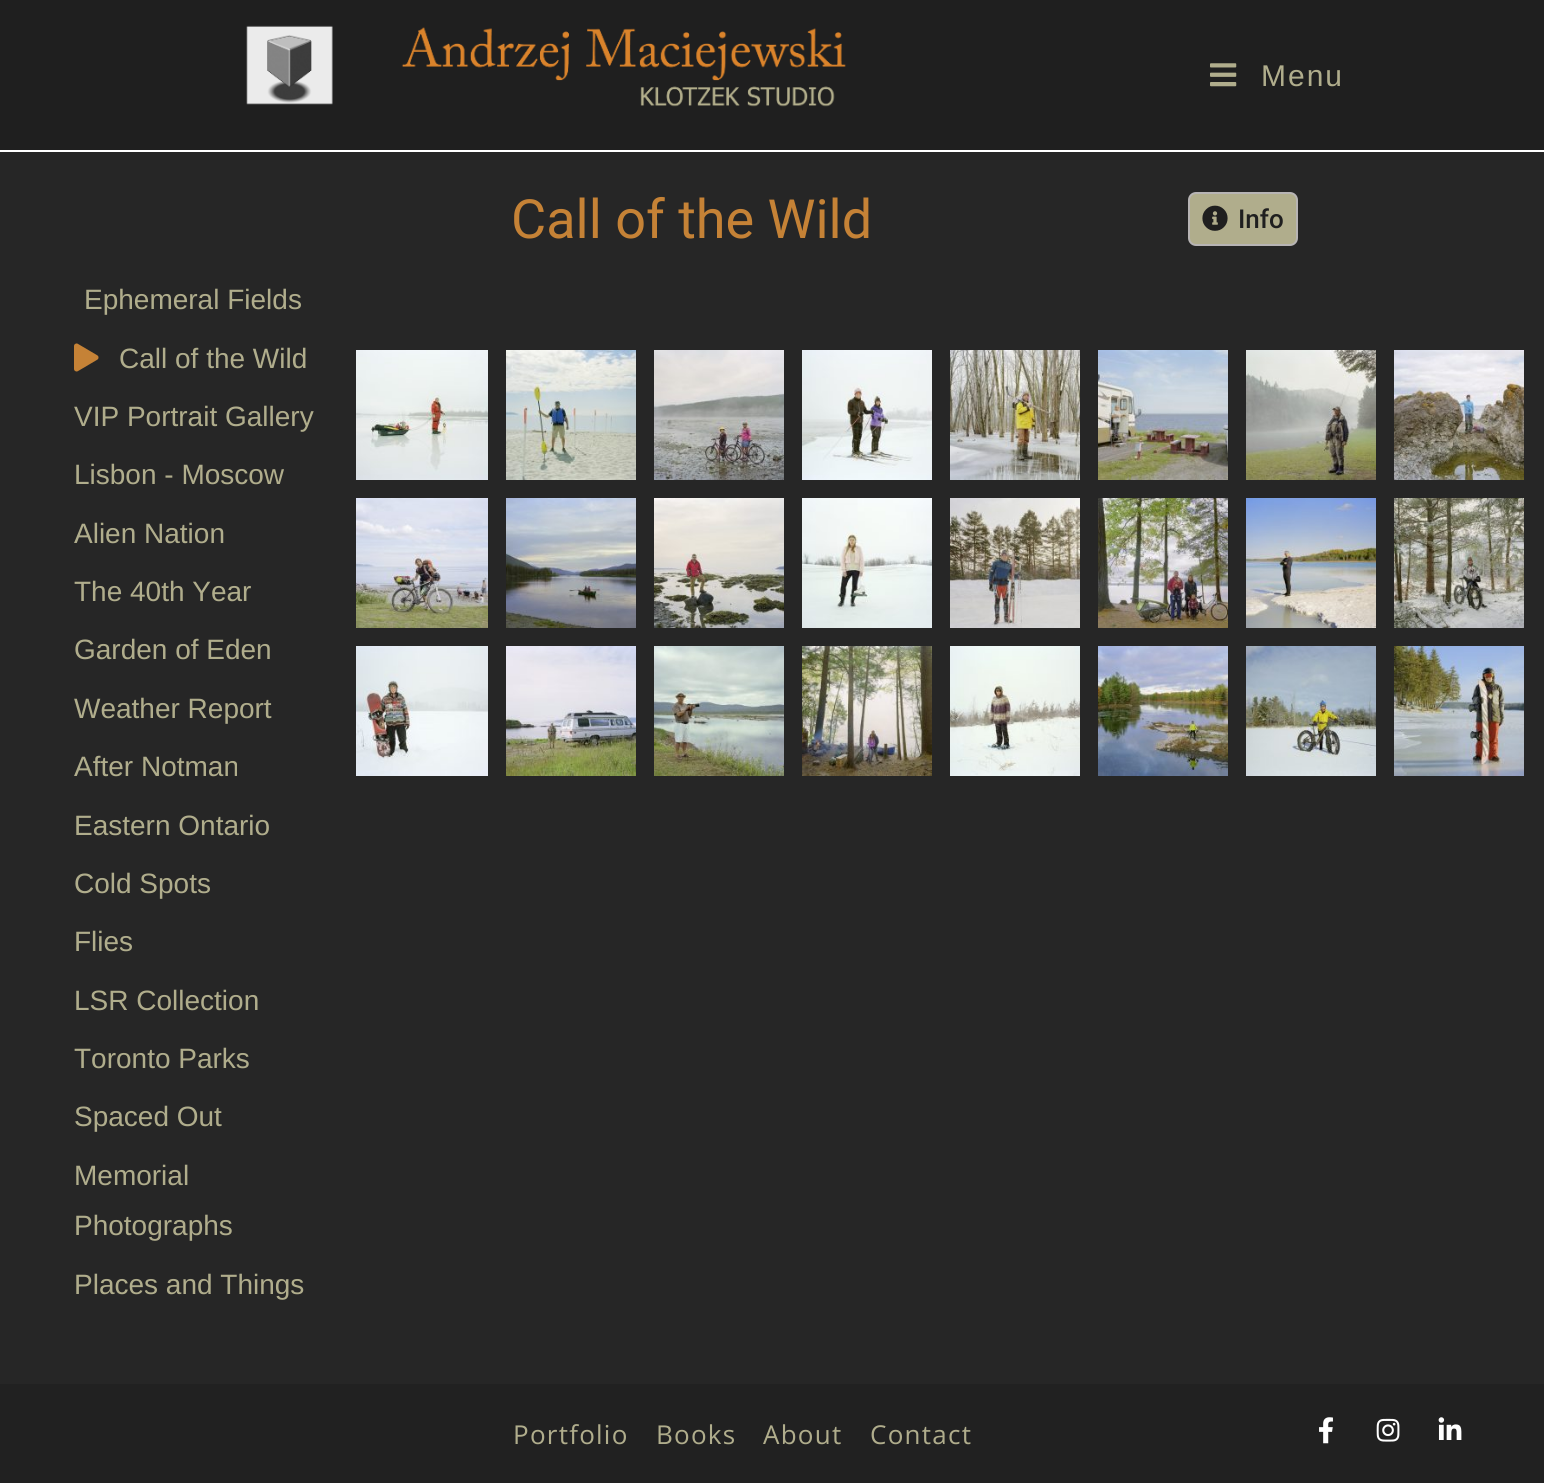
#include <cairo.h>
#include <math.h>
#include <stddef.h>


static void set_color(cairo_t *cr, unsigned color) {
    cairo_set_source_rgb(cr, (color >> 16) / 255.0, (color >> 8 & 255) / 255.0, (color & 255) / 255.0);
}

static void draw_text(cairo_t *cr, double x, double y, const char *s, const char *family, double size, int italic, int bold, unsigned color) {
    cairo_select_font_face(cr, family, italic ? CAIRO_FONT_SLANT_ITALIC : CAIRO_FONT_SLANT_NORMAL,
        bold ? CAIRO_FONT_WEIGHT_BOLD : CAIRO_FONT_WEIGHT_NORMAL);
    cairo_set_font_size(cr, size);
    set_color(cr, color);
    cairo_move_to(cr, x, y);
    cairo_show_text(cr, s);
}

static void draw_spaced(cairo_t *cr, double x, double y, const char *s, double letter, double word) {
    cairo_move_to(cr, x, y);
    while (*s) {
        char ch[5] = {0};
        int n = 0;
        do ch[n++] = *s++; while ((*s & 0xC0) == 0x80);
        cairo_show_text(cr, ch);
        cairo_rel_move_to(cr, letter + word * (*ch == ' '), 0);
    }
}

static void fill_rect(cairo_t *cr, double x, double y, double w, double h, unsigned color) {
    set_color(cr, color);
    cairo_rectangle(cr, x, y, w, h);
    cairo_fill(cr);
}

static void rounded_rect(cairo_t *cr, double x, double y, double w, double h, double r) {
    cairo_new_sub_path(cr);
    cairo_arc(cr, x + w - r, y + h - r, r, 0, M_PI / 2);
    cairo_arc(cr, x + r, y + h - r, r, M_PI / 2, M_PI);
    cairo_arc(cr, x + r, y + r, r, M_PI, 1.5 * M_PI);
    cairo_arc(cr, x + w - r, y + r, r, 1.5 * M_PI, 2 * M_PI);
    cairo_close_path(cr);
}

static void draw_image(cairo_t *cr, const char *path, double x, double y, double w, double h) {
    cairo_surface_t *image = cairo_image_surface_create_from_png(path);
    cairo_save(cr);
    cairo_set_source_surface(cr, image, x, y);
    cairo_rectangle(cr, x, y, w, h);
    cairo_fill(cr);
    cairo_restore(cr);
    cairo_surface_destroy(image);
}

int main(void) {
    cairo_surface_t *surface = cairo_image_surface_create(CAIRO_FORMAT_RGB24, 1544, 1483);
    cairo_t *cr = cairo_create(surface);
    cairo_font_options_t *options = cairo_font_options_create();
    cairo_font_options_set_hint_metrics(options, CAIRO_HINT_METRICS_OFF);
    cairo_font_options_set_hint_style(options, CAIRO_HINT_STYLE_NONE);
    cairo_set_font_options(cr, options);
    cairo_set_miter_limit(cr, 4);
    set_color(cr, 0x262626);
    cairo_paint(cr);
    fill_rect(cr, 0, 0, 1544, 150, 0x1F1F1F);
    fill_rect(cr, 0, 150, 1544, 2, 0xFFFFFF);
    draw_image(cr, "assets/img1.png", 246, 25, 600, 82);
    draw_image(cr, "assets/img2.png", 1210, 63, 27, 24);
    cairo_select_font_face(cr, "Liberation Sans", CAIRO_FONT_SLANT_NORMAL, CAIRO_FONT_WEIGHT_NORMAL);
    cairo_set_font_size(cr, 30);
    set_color(cr, 0xB0AD8C);
    draw_spaced(cr, 1261, 86, "Menu", 2, 0);
    draw_text(cr, 511, 238, "Call of the Wild", "Roboto", 54, 0, 0, 0xC58236);
    set_color(cr, 0xB0AD8C);
    rounded_rect(cr, 1189, 193, 108, 52, 7);
    cairo_fill_preserve(cr);
    set_color(cr, 0xB7B4B4);
    cairo_stroke(cr);
    draw_image(cr, "assets/img3.png", 1202, 205, 26, 26);
    draw_text(cr, 1238, 228, "Info", "Roboto Medium", 26, 0, 0, 0x1F1F1F);
    draw_text(cr, 84, 309, "Ephemeral Fields", "Liberation Sans", 28, 0, 0, 0xB0AD8C);
    draw_image(cr, "assets/img4.png", 74, 343, 25, 29);
    draw_text(cr, 119, 368, "Call of the Wild", "Liberation Sans", 28, 0, 0, 0xB0AD8C);
    draw_text(cr, 74, 426, "VIP Portrait Gallery", "Liberation Sans", 28, 0, 0, 0xB0AD8C);
    draw_text(cr, 74, 484, "Lisbon - Moscow", "Liberation Sans", 28, 0, 0, 0xB0AD8C);
    draw_text(cr, 74, 543, "Alien Nation", "Liberation Sans", 28, 0, 0, 0xB0AD8C);
    draw_text(cr, 74, 601, "The 40th Year", "Liberation Sans", 28, 0, 0, 0xB0AD8C);
    draw_text(cr, 74, 659, "Garden of Eden", "Liberation Sans", 28, 0, 0, 0xB0AD8C);
    draw_text(cr, 74, 718, "Weather Report", "Liberation Sans", 28, 0, 0, 0xB0AD8C);
    draw_text(cr, 74, 776, "After Notman", "Liberation Sans", 28, 0, 0, 0xB0AD8C);
    draw_text(cr, 74, 835, "Eastern Ontario", "Liberation Sans", 28, 0, 0, 0xB0AD8C);
    draw_text(cr, 74, 893, "Cold Spots", "Liberation Sans", 28, 0, 0, 0xB0AD8C);
    draw_text(cr, 74, 951, "Flies", "Liberation Sans", 28, 0, 0, 0xB0AD8C);
    draw_text(cr, 74, 1010, "LSR Collection", "Liberation Sans", 28, 0, 0, 0xB0AD8C);
    draw_text(cr, 74, 1068, "Toronto Parks", "Liberation Sans", 28, 0, 0, 0xB0AD8C);
    draw_text(cr, 74, 1126, "Spaced Out", "Liberation Sans", 28, 0, 0, 0xB0AD8C);
    draw_text(cr, 74, 1185, "Memorial", "Liberation Sans", 28, 0, 0, 0xB0AD8C);
    draw_text(cr, 74, 1235, "Photographs", "Liberation Sans", 28, 0, 0, 0xB0AD8C);
    draw_text(cr, 74, 1294, "Places and Things", "Liberation Sans", 28, 0, 0, 0xB0AD8C);
    draw_image(cr, "assets/img5.png", 356, 350, 132, 130);
    draw_image(cr, "assets/img6.png", 506, 350, 130, 130);
    draw_image(cr, "assets/img7.png", 654, 350, 130, 130);
    draw_image(cr, "assets/img8.png", 802, 350, 130, 130);
    draw_image(cr, "assets/img9.png", 950, 350, 130, 130);
    draw_image(cr, "assets/img10.png", 1098, 350, 130, 130);
    draw_image(cr, "assets/img11.png", 1246, 350, 130, 130);
    draw_image(cr, "assets/img12.png", 1394, 350, 130, 130);
    draw_image(cr, "assets/img13.png", 356, 498, 132, 130);
    draw_image(cr, "assets/img14.png", 506, 498, 130, 130);
    draw_image(cr, "assets/img15.png", 654, 498, 130, 130);
    draw_image(cr, "assets/img16.png", 802, 498, 130, 130);
    draw_image(cr, "assets/img17.png", 950, 498, 130, 130);
    draw_image(cr, "assets/img18.png", 1098, 498, 130, 130);
    draw_image(cr, "assets/img19.png", 1246, 498, 130, 130);
    draw_image(cr, "assets/img20.png", 1394, 498, 130, 130);
    draw_image(cr, "assets/img21.png", 356, 646, 132, 130);
    draw_image(cr, "assets/img22.png", 506, 646, 130, 130);
    draw_image(cr, "assets/img23.png", 654, 646, 130, 130);
    draw_image(cr, "assets/img24.png", 802, 646, 130, 130);
    draw_image(cr, "assets/img25.png", 950, 646, 130, 130);
    draw_image(cr, "assets/img26.png", 1098, 646, 130, 130);
    draw_image(cr, "assets/img27.png", 1246, 646, 130, 130);
    draw_image(cr, "assets/img28.png", 1394, 646, 130, 130);
    fill_rect(cr, 0, 1384, 1544, 99, 0x212121);
    cairo_select_font_face(cr, "Open Sans", CAIRO_FONT_SLANT_NORMAL, CAIRO_FONT_WEIGHT_NORMAL);
    cairo_set_font_size(cr, 26);
    set_color(cr, 0xB0AD8C);
    draw_spaced(cr, 513, 1444, "Portfolio", 1.25, 0);
    draw_spaced(cr, 656, 1444, "Books", 1.25, 0);
    draw_spaced(cr, 763, 1444, "About", 1.25, 0);
    draw_spaced(cr, 870, 1444, "Contact", 1.25, 0);
    draw_image(cr, "assets/img29.png", 1319, 1417, 14, 27);
    draw_image(cr, "assets/img30.png", 1376, 1418, 24, 24);
    draw_image(cr, "assets/img31.png", 1438, 1417, 24, 23);
    cairo_surface_write_to_png(surface, "output.png");
    cairo_font_options_destroy(options);
    cairo_destroy(cr);
    cairo_surface_destroy(surface);
    return 0;
}
